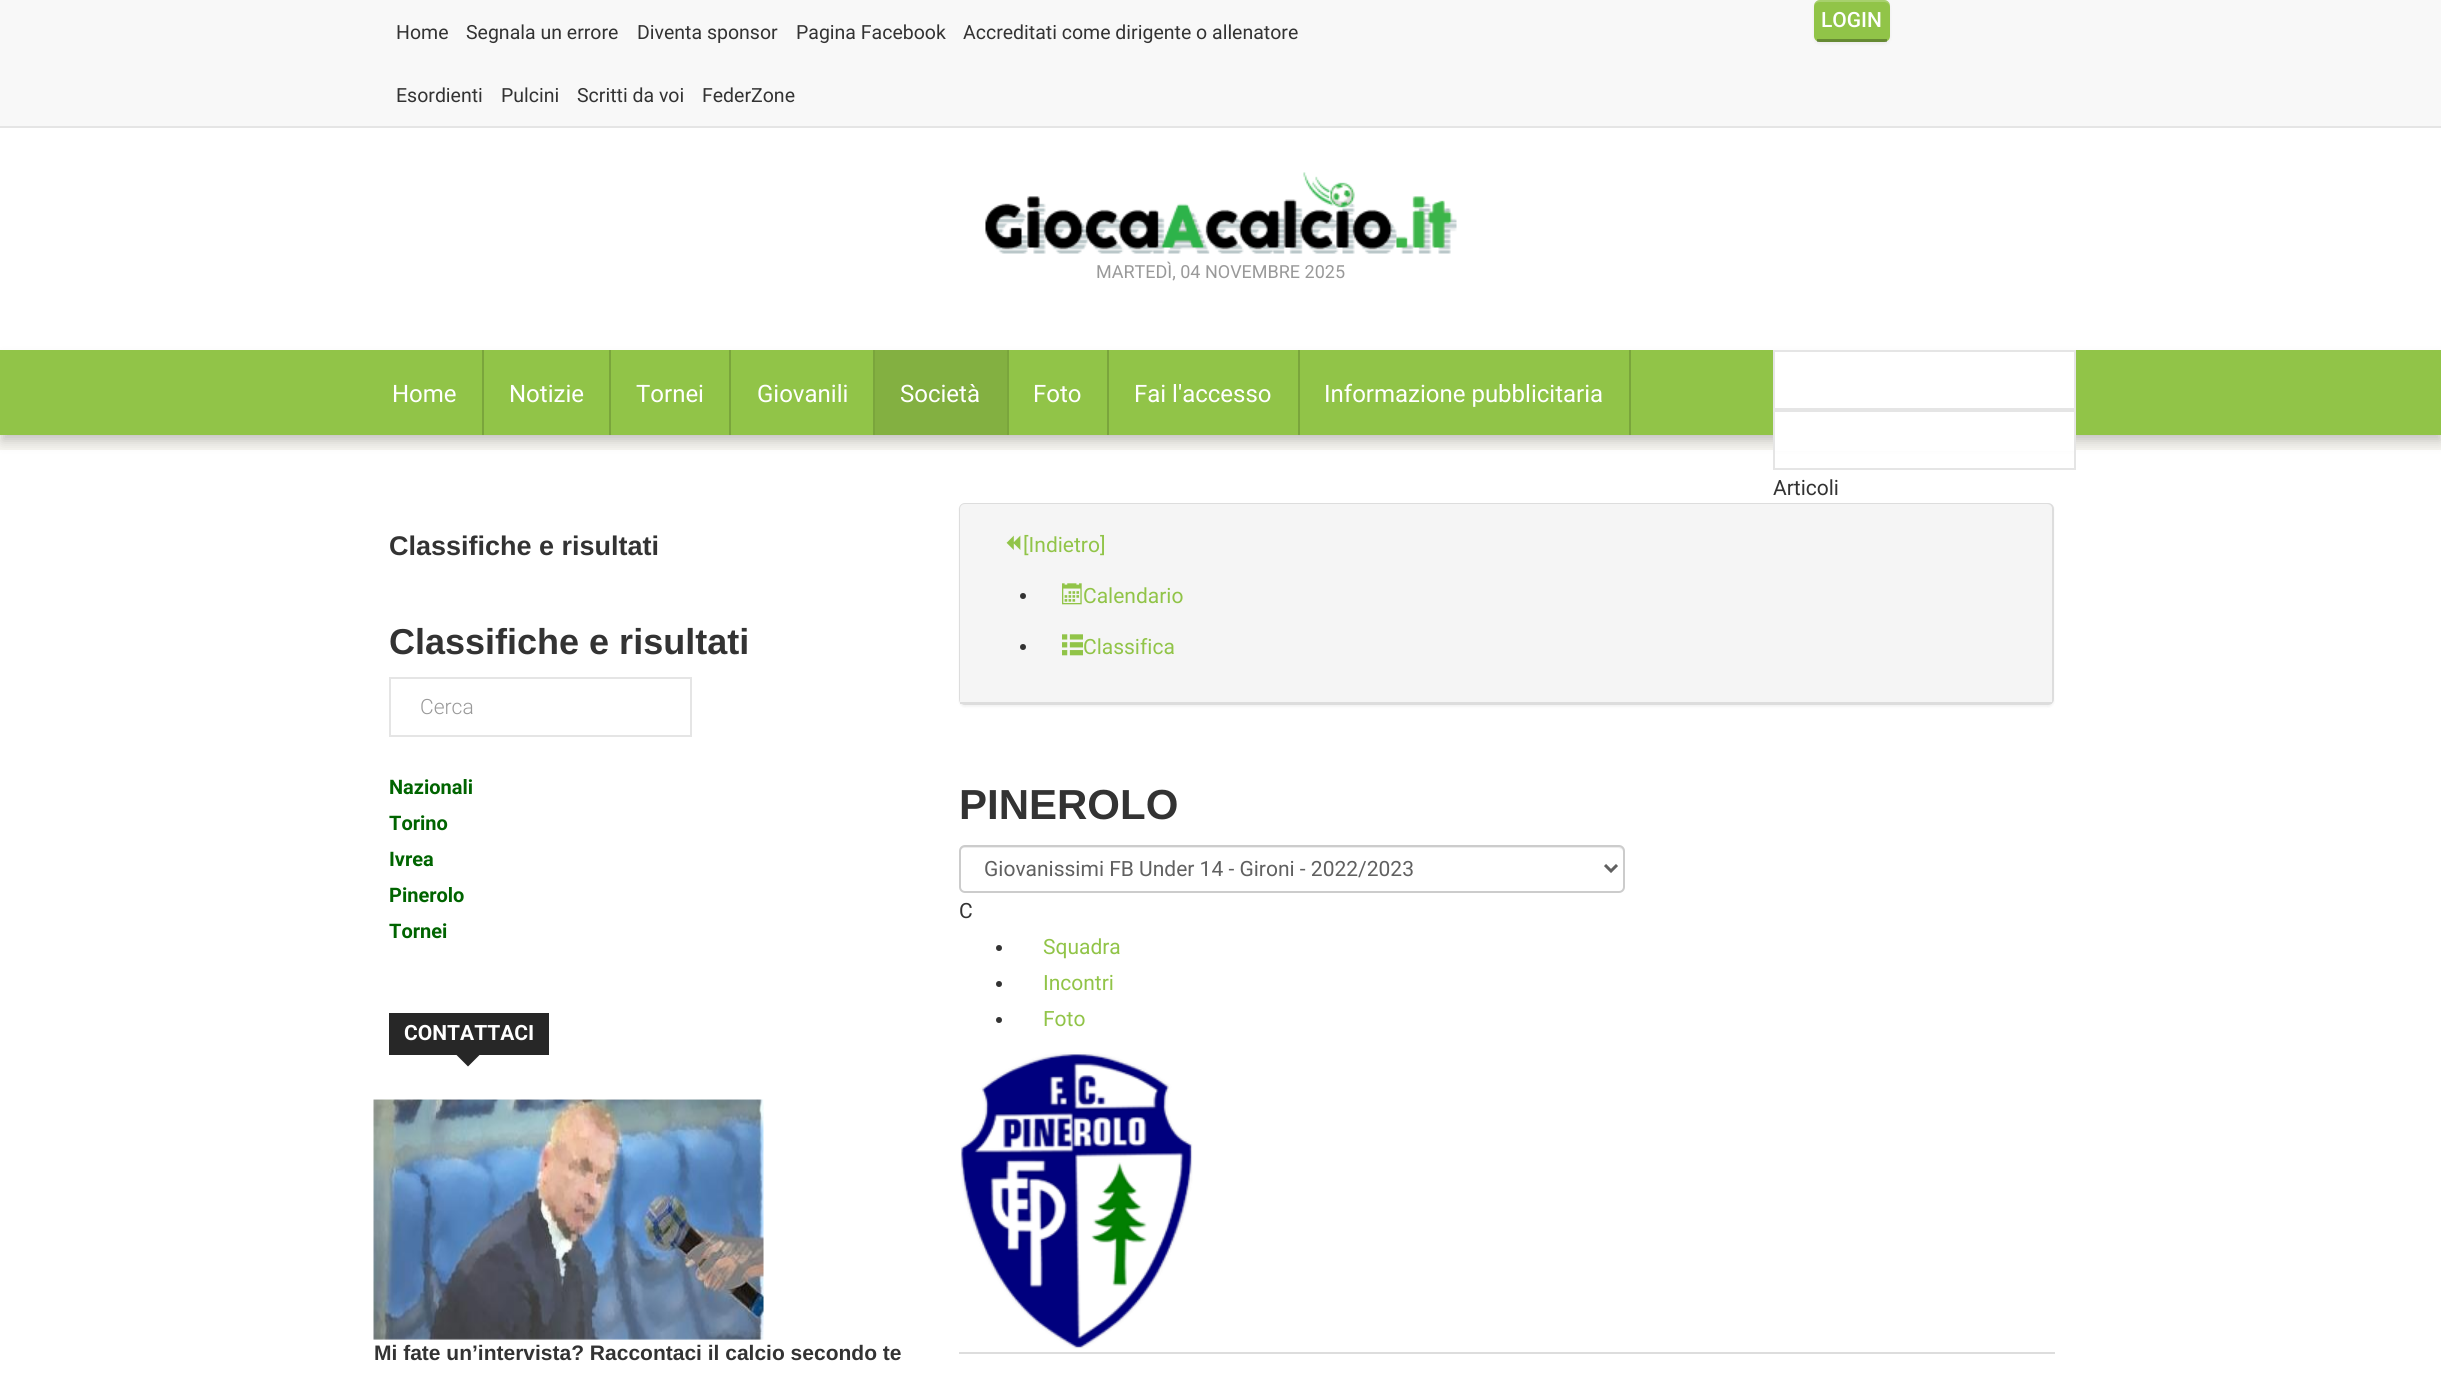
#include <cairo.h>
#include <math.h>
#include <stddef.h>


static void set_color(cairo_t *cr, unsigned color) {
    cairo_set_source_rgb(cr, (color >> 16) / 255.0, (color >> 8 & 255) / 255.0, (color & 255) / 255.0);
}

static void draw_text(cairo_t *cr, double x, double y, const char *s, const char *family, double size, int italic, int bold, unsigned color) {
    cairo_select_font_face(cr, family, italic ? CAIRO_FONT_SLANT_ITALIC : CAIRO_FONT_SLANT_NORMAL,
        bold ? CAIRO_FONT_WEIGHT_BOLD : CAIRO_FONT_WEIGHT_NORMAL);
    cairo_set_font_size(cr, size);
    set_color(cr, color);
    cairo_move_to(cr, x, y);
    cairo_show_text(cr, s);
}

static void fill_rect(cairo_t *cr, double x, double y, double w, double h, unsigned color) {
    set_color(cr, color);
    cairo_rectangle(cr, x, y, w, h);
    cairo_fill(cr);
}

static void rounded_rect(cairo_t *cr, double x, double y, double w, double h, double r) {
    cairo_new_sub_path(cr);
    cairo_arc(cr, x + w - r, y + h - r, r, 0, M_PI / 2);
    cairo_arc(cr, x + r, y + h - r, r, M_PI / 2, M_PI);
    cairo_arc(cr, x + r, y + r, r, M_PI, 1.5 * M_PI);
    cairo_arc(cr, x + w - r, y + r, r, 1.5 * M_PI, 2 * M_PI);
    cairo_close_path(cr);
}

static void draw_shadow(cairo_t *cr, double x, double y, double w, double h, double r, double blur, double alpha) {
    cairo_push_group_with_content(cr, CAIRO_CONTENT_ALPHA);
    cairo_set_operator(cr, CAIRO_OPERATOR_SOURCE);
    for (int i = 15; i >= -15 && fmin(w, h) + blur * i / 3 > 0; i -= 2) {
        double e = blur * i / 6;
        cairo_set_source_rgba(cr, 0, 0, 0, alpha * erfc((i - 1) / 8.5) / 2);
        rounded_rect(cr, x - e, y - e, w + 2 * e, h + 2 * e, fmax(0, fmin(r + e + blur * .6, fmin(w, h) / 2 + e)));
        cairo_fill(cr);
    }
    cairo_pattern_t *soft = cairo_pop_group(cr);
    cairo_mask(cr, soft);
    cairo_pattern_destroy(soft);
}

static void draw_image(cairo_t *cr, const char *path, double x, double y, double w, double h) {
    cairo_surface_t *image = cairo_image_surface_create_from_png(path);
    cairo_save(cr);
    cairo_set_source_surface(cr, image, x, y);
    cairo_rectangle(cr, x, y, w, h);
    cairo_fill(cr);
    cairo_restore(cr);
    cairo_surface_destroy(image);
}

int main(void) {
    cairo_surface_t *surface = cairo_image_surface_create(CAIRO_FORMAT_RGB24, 2441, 1374);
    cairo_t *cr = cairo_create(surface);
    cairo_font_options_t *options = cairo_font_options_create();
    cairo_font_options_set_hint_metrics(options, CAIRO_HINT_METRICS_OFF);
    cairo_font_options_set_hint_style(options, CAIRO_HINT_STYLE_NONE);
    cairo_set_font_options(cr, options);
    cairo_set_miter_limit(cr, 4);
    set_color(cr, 0xFFFFFF);
    cairo_paint(cr);
    fill_rect(cr, 0, 0, 2441, 126, 0xF8F8F8);
    fill_rect(cr, 0, 126, 2441, 2, 0xE5E5E5);
    set_color(cr, 0x000000);
    draw_shadow(cr, 1814, 2, 76, 42, 6, 1.5, 0.05);
    set_color(cr, 0x91C448);
    rounded_rect(cr, 1814, 0, 76, 42, 6);
    cairo_fill(cr);
    cairo_set_source_rgba(cr, 1, 1, 1, 0.2);
    cairo_new_path(cr);
    cairo_move_to(cr, 1820, 2);
    cairo_line_to(cr, 1884, 2);
    cairo_curve_to(cr, 1887, 2, 1890, 4, 1890, 8);
    cairo_line_to(cr, 1890, 6);
    cairo_curve_to(cr, 1890, 3, 1887, 0, 1884, 0);
    cairo_line_to(cr, 1820, 0);
    cairo_curve_to(cr, 1816, 0, 1814, 3, 1814, 6);
    cairo_line_to(cr, 1814, 36);
    cairo_line_to(cr, 1814, 37);
    cairo_line_to(cr, 1814, 8);
    cairo_curve_to(cr, 1814, 4, 1816, 2, 1820, 2);
    cairo_close_path(cr);
    cairo_fill(cr);
    cairo_set_source_rgba(cr, 0, 0, 0, 0.3);
    cairo_rectangle(cr, 1817, 39, 70, 3);
    cairo_fill(cr);
    draw_text(cr, 1821, 27, "LOGIN", "Roboto Medium", 21, 0, 0, 0xFFFFFF);
    draw_text(cr, 396, 39, "Home", "Roboto", 19.5, 0, 0, 0x333333);
    draw_text(cr, 466, 39, "Segnala un errore", "Roboto", 19.5, 0, 0, 0x333333);
    draw_text(cr, 637, 39, "Diventa sponsor", "Roboto", 19.5, 0, 0, 0x333333);
    draw_text(cr, 796, 39, "Pagina Facebook", "Roboto", 19.5, 0, 0, 0x333333);
    draw_text(cr, 963, 39, "Accreditati come dirigente o allenatore", "Roboto", 19.5, 0, 0, 0x333333);
    draw_text(cr, 396, 102, "Esordienti", "Roboto", 19.5, 0, 0, 0x333333);
    draw_text(cr, 501, 102, "Pulcini", "Roboto", 19.5, 0, 0, 0x333333);
    draw_text(cr, 577, 102, "Scritti da voi", "Roboto", 19.5, 0, 0, 0x333333);
    draw_text(cr, 702, 102, "FederZone", "Roboto", 19.5, 0, 0, 0x333333);
    draw_image(cr, "assets/img1.png", 985, 172, 472, 82);
    draw_text(cr, 1096, 278, "MARTEDÌ, 04 NOVEMBRE 2025", "Roboto", 18, 0, 0, 0x999999);
    fill_rect(cr, 0, 435, 2441, 15, 0xF6F5F0);
    set_color(cr, 0x000000);
    draw_shadow(cr, 2, 359, 2439, 82, 0, 6, 0.2);
    fill_rect(cr, 0, 350, 2441, 85, 0x91C448);
    fill_rect(cr, 482, 350, 2, 85, 0x7AA53C);
    draw_text(cr, 392, 402, "Home", "Roboto", 24, 0, 0, 0xFFFFFF);
    fill_rect(cr, 609, 350, 2, 85, 0x7AA53C);
    draw_text(cr, 509, 402, "Notizie", "Roboto", 24, 0, 0, 0xFFFFFF);
    fill_rect(cr, 729, 350, 2, 85, 0x7AA53C);
    draw_text(cr, 636, 402, "Tornei", "Roboto", 24, 0, 0, 0xFFFFFF);
    fill_rect(cr, 873, 350, 2, 85, 0x7AA53C);
    draw_text(cr, 757, 402, "Giovanili", "Roboto", 24, 0, 0, 0xFFFFFF);
    fill_rect(cr, 1007, 350, 2, 85, 0x7AA53C);
    fill_rect(cr, 875, 350, 132, 85, 0x83B041);
    draw_text(cr, 900, 402, "Società", "Roboto", 24, 0, 0, 0xFFFFFF);
    fill_rect(cr, 1107, 350, 2, 85, 0x7AA53C);
    draw_text(cr, 1033, 402, "Foto", "Roboto", 24, 0, 0, 0xFFFFFF);
    fill_rect(cr, 1298, 350, 2, 85, 0x7AA53C);
    draw_text(cr, 1134, 402, "Fai l'accesso", "Roboto", 24, 0, 0, 0xFFFFFF);
    fill_rect(cr, 1629, 350, 2, 85, 0x7AA53C);
    draw_text(cr, 1324, 402, "Informazione pubblicitaria", "Roboto", 24, 0, 0, 0xFFFFFF);
    cairo_rectangle(cr, 1774, 351, 301, 58);
    cairo_fill_preserve(cr);
    set_color(cr, 0xE5E5E5);
    cairo_stroke(cr);
    fill_rect(cr, 1775, 412, 299, 39, 0xFFFFFF);
    cairo_rectangle(cr, 1774, 411, 301, 58);
    set_color(cr, 0xE5E5E5);
    cairo_stroke(cr);
    draw_text(cr, 1773, 495, "Articoli", "Roboto", 21, 0, 0, 0x333333);
    draw_text(cr, 389, 555, "Classifiche e risultati", "Liberation Sans", 27, 0, 1, 0x333333);
    draw_text(cr, 389, 654, "Classifiche e risultati", "Liberation Sans", 36, 0, 1, 0x333333);
    cairo_rectangle(cr, 390, 678, 301, 58);
    set_color(cr, 0xE5E5E5);
    cairo_stroke(cr);
    draw_text(cr, 420, 714, "Cerca", "Roboto Light", 21, 0, 0, 0x999999);
    draw_text(cr, 389, 794, "Nazionali", "Roboto", 20, 0, 1, 0x006400);
    draw_text(cr, 389, 830, "Torino", "Roboto", 20, 0, 1, 0x006400);
    draw_text(cr, 389, 866, "Ivrea", "Roboto", 20, 0, 1, 0x006400);
    draw_text(cr, 389, 902, "Pinerolo", "Roboto", 20, 0, 1, 0x006400);
    draw_text(cr, 389, 938, "Tornei", "Roboto", 20, 0, 1, 0x006400);
    fill_rect(cr, 389, 1013, 160, 42, 0x272727);
    draw_text(cr, 404, 1040, "CONTATTACI", "Roboto", 21, 0, 1, 0xFFFFFF);
    set_color(cr, 0x272727);
    cairo_new_path(cr);
    cairo_move_to(cr, 453, 1051.5);
    cairo_line_to(cr, 483, 1051.5);
    cairo_line_to(cr, 468, 1066.5);
    cairo_close_path(cr);
    cairo_fill(cr);
    draw_image(cr, "assets/img2.png", 373, 1099, 391, 241);
    draw_text(cr, 374, 1360, "Mi fate un’intervista? Raccontaci il calcio secondo te", "Liberation Sans", 21, 0, 1, 0x333333);
    set_color(cr, 0x000000);
    draw_shadow(cr, 959, 504, 1095, 203, 6, 1, 0.05);
    rounded_rect(cr, 960, 504, 1093, 200, 5);
    set_color(cr, 0xDDDDDD);
    cairo_stroke(cr);
    set_color(cr, 0xF5F5F5);
    cairo_new_path(cr);
    cairo_move_to(cr, 965, 504);
    cairo_line_to(cr, 2047, 504);
    cairo_curve_to(cr, 2050, 504, 2052, 506, 2052, 509);
    cairo_line_to(cr, 2052, 704);
    cairo_line_to(cr, 960, 704);
    cairo_line_to(cr, 960, 509);
    cairo_curve_to(cr, 960, 506, 962, 504, 965, 504);
    cairo_close_path(cr);
    cairo_fill(cr);
    fill_rect(cr, 960, 702, 1092, 2, 0xDDDDDD);
    draw_image(cr, "assets/img3.png", 1006, 535, 15, 15);
    draw_text(cr, 1023, 552, "[Indietro]", "Roboto", 21, 0, 0, 0x91C448);
    set_color(cr, 0x333333);
    cairo_new_path(cr);
    cairo_arc(cr, 1023, 596, 3, 0, 2 * M_PI);
    cairo_fill(cr);
    draw_image(cr, "assets/img4.png", 1062, 583, 20, 22);
    draw_text(cr, 1083, 603, "Calendario", "Roboto", 21, 0, 0, 0x91C448);
    set_color(cr, 0x333333);
    cairo_new_path(cr);
    cairo_arc(cr, 1023, 647, 3, 0, 2 * M_PI);
    cairo_fill(cr);
    draw_image(cr, "assets/img5.png", 1062, 634, 21, 22);
    draw_text(cr, 1083, 654, "Classifica", "Roboto", 21, 0, 0, 0x91C448);
    draw_text(cr, 959, 819, "PINEROLO", "Liberation Sans", 42, 0, 1, 0x333333);
    set_color(cr, 0xECECEC);
    cairo_new_path(cr);
    cairo_move_to(cr, 964, 848);
    cairo_line_to(cr, 1618, 848);
    cairo_curve_to(cr, 1621, 848, 1623, 850, 1623, 852);
    cairo_line_to(cr, 1623, 851);
    cairo_curve_to(cr, 1623, 848, 1621, 846, 1618, 846);
    cairo_line_to(cr, 965, 846);
    cairo_curve_to(cr, 962, 846, 960, 848, 960, 851);
    cairo_line_to(cr, 960, 852);
    cairo_curve_to(cr, 960, 850, 962, 848, 964, 848);
    cairo_close_path(cr);
    cairo_fill(cr);
    rounded_rect(cr, 960, 846, 664, 46, 5);
    set_color(cr, 0xCCCCCC);
    cairo_stroke(cr);
    cairo_new_path(cr);
    cairo_move_to(cr, 1605, 865);
    cairo_line_to(cr, 1611, 871);
    cairo_line_to(cr, 1617, 865);
    set_color(cr, 0x606060);
    cairo_set_line_width(cr, 3);
    cairo_stroke(cr);
    draw_text(cr, 984, 876, "Giovanissimi FB Under 14 - Gironi - 2022/2023", "Roboto", 21, 0, 0, 0x606060);
    draw_text(cr, 959, 918, "C", "Roboto", 21, 0, 0, 0x333333);
    cairo_new_path(cr);
    cairo_arc(cr, 999, 948, 3, 0, 2 * M_PI);
    cairo_fill(cr);
    draw_text(cr, 1043, 954, "Squadra", "Roboto", 21, 0, 0, 0x91C448);
    set_color(cr, 0x333333);
    cairo_new_path(cr);
    cairo_arc(cr, 999, 984, 3, 0, 2 * M_PI);
    cairo_fill(cr);
    draw_text(cr, 1043, 990, "Incontri", "Roboto", 21, 0, 0, 0x91C448);
    set_color(cr, 0x333333);
    cairo_new_path(cr);
    cairo_arc(cr, 999, 1020, 3, 0, 2 * M_PI);
    cairo_fill(cr);
    draw_text(cr, 1043, 1026, "Foto", "Roboto", 21, 0, 0, 0x91C448);
    draw_image(cr, "assets/img6.png", 960, 1052, 233, 297);
    fill_rect(cr, 959, 1352, 1096, 2, 0xDDDDDD);
    cairo_surface_write_to_png(surface, "output.png");
    cairo_font_options_destroy(options);
    cairo_destroy(cr);
    cairo_surface_destroy(surface);
    return 0;
}
